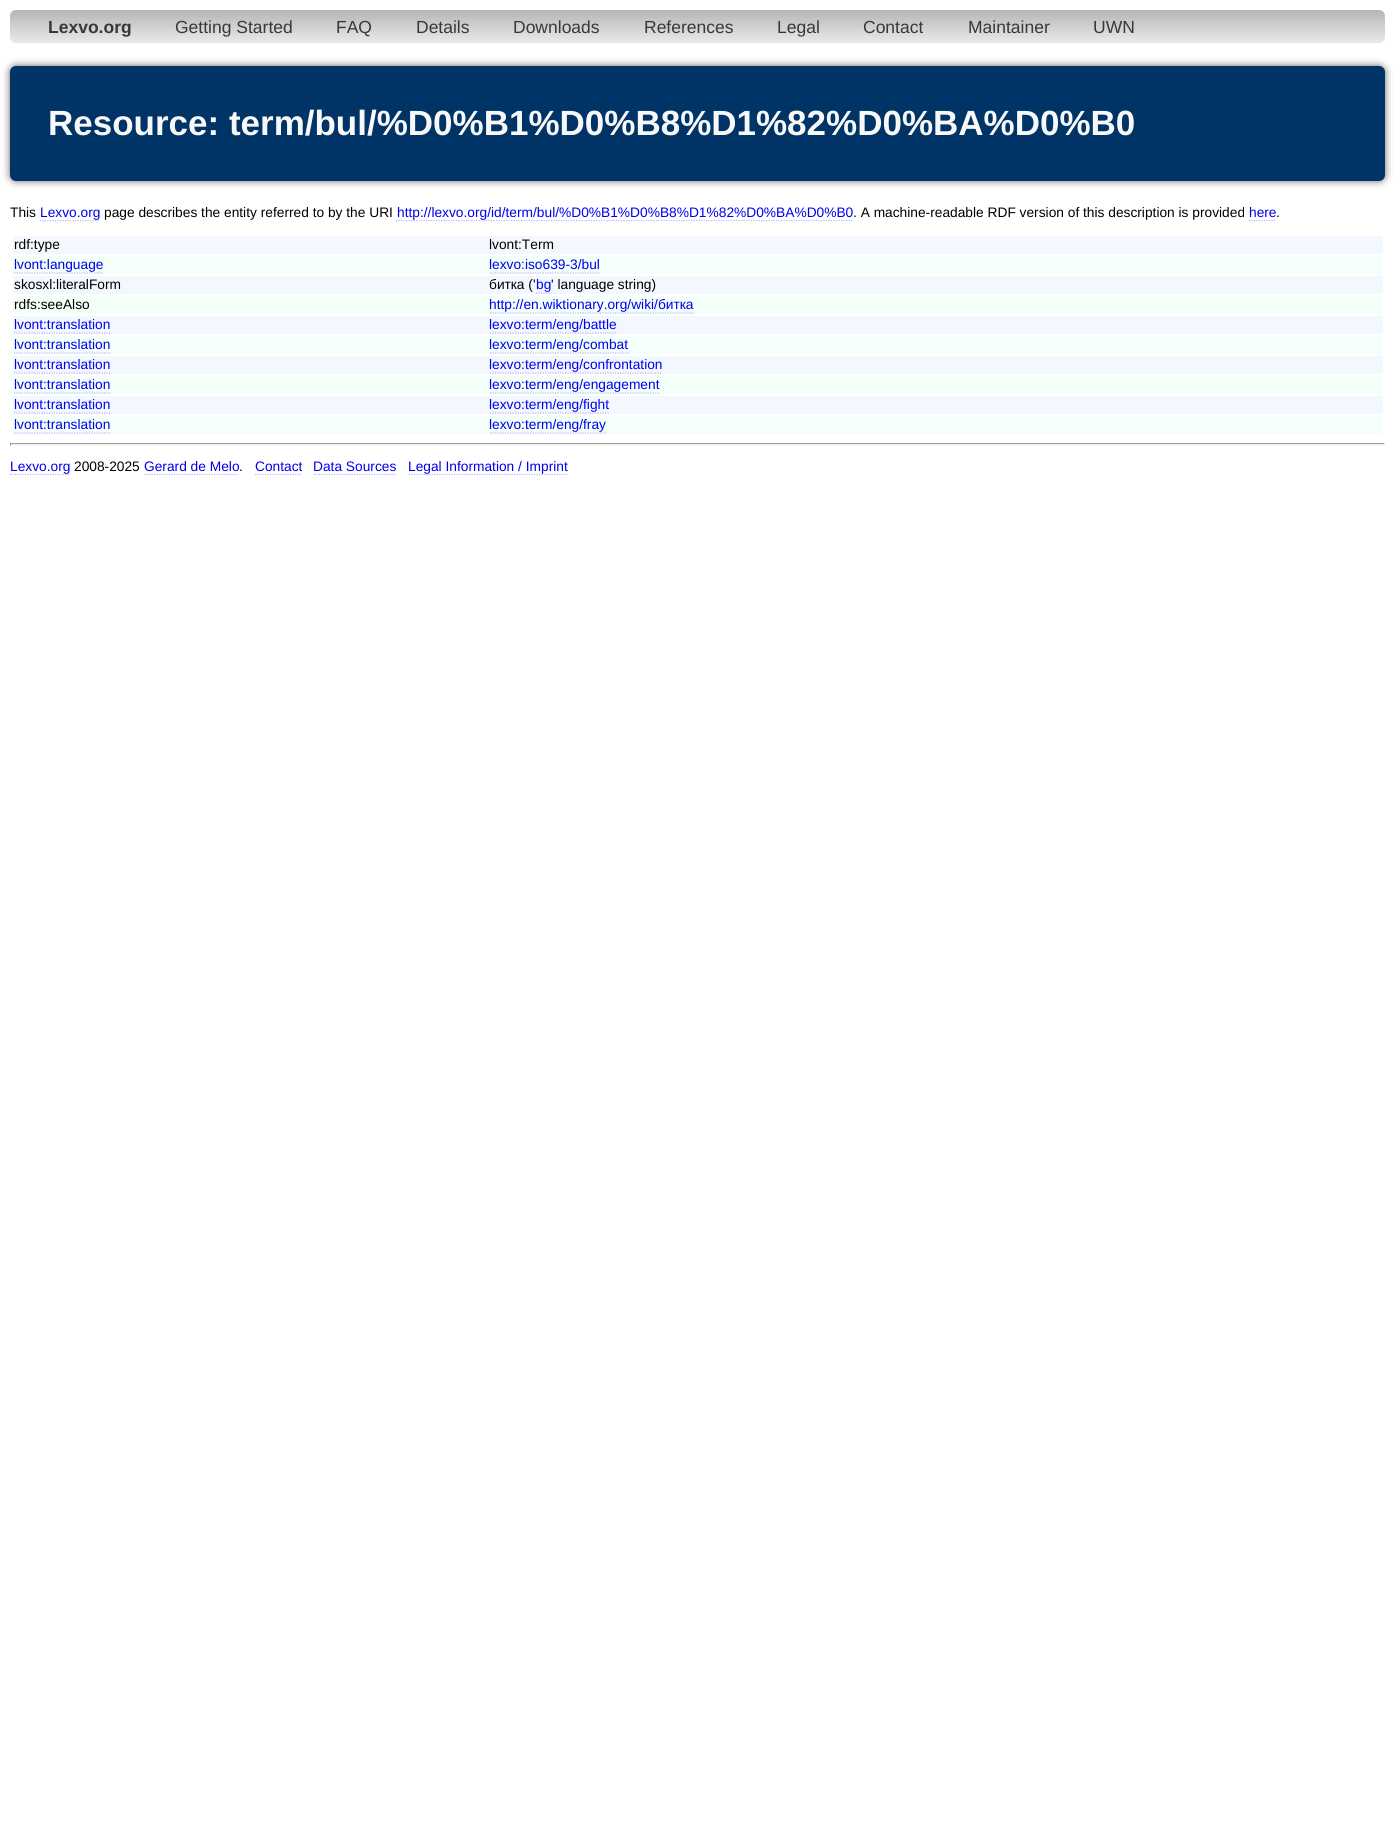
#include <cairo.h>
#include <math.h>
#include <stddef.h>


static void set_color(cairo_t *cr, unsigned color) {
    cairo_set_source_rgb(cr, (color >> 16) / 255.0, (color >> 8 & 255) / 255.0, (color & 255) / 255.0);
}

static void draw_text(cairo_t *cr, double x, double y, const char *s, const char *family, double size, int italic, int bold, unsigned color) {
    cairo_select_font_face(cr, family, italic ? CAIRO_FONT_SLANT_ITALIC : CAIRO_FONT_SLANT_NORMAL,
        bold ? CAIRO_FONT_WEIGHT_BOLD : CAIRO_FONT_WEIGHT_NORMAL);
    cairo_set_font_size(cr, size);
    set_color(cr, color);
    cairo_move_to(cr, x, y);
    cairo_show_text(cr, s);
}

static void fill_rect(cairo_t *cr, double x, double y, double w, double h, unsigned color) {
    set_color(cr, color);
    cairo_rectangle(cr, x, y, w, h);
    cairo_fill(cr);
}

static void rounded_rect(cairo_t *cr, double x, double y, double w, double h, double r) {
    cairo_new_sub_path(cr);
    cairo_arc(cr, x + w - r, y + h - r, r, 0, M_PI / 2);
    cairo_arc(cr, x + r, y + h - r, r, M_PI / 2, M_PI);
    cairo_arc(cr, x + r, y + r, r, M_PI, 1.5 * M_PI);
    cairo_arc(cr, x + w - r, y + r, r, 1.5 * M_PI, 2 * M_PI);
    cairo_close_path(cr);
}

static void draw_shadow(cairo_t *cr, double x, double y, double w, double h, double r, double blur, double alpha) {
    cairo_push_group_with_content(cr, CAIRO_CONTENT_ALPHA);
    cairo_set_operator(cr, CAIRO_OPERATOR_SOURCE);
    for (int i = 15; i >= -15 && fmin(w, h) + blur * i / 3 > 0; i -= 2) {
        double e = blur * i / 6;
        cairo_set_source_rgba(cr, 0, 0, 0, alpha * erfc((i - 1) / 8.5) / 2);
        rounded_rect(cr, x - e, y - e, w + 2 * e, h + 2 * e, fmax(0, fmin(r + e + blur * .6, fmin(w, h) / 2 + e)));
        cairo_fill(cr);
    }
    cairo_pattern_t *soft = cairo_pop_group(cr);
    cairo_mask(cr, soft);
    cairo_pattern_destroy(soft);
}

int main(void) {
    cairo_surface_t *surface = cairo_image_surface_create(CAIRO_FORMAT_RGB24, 1395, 1829);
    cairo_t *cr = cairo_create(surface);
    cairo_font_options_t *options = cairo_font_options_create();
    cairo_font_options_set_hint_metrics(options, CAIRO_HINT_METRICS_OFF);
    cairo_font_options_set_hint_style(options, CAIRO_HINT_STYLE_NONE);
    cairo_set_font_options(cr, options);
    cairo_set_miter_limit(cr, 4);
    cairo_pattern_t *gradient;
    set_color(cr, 0xFFFFFF);
    cairo_paint(cr);
    gradient = cairo_pattern_create_linear(698, 10, 698, 43);
    cairo_pattern_add_color_stop_rgba(gradient, 0, 0.71, 0.71, 0.71, 1);
    cairo_pattern_add_color_stop_rgba(gradient, 1, 0.918, 0.918, 0.918, 1);
    cairo_set_source(cr, gradient);
    cairo_pattern_destroy(gradient);
    rounded_rect(cr, 10, 10, 1375, 33, 6);
    cairo_fill(cr);
    draw_text(cr, 48, 33, "Lexvo.org", "Liberation Sans", 17.5, 0, 1, 0x383838);
    draw_text(cr, 175, 33, "Getting Started", "Liberation Sans", 17.5, 0, 0, 0x383838);
    draw_text(cr, 336, 33, "FAQ", "Liberation Sans", 17.5, 0, 0, 0x383838);
    draw_text(cr, 416, 33, "Details", "Liberation Sans", 17.5, 0, 0, 0x383838);
    draw_text(cr, 513, 33, "Downloads", "Liberation Sans", 17.5, 0, 0, 0x383838);
    draw_text(cr, 644, 33, "References", "Liberation Sans", 17.5, 0, 0, 0x383838);
    draw_text(cr, 777, 33, "Legal", "Liberation Sans", 17.5, 0, 0, 0x383838);
    draw_text(cr, 863, 33, "Contact", "Liberation Sans", 17.5, 0, 0, 0x383838);
    draw_text(cr, 968, 33, "Maintainer", "Liberation Sans", 17.5, 0, 0, 0x383838);
    draw_text(cr, 1093, 33, "UWN", "Liberation Sans", 17.5, 0, 0, 0x383838);
    set_color(cr, 0x000000);
    draw_shadow(cr, 10, 66, 1375, 115, 6, 4, 0.6);
    set_color(cr, 0x003366);
    rounded_rect(cr, 10, 66, 1375, 115, 6);
    cairo_fill(cr);
    draw_text(cr, 48, 135, "Resource: term/bul/%D0%B1%D0%B8%D1%82%D0%BA%D0%B0", "Liberation Sans", 35, 0, 1, 0xF8F8F8);
    draw_text(cr, 10, 217, "This", "Liberation Sans", 13.75, 0, 0, 0x000000);
    cairo_new_path(cr);
    cairo_move_to(cr, 40, 220.5);
    cairo_line_to(cr, 100, 220.5);
    set_color(cr, 0xBFB6FF);
    cairo_set_line_width(cr, 1.2);
    cairo_set_dash(cr, (double[]){1.25, 1.25}, 2, 0);
    cairo_stroke(cr);
    draw_text(cr, 40, 217, "Lexvo.org", "Liberation Sans", 13.75, 0, 0, 0x0000EE);
    draw_text(cr, 104, 217, "page describes the entity referred to by the URI", "Liberation Sans", 13.75, 0, 0, 0x000000);
    cairo_new_path(cr);
    cairo_move_to(cr, 396, 220.5);
    cairo_line_to(cr, 852.5, 220.5);
    set_color(cr, 0xBFB6FF);
    cairo_stroke(cr);
    draw_text(cr, 397, 217, "http://lexvo.org/id/term/bul/%D0%B1%D0%B8%D1%82%D0%BA%D0%B0", "Liberation Sans", 13.75, 0, 0, 0x0000EE);
    draw_text(cr, 853, 217, ". A machine-readable RDF version of this description is provided", "Liberation Sans", 13.75, 0, 0, 0x000000);
    draw_text(cr, 1249, 217, "here", "Liberation Sans", 13.75, 0, 0, 0x0000EE);
    cairo_new_path(cr);
    cairo_move_to(cr, 1249, 220.5);
    cairo_line_to(cr, 1276, 220.5);
    set_color(cr, 0xBFB6FF);
    cairo_stroke(cr);
    draw_text(cr, 1276, 217, ".", "Liberation Sans", 13.75, 0, 0, 0x000000);
    fill_rect(cr, 13, 236, 1370, 18, 0xF3F8FF);
    draw_text(cr, 14, 249, "rdf:type", "Liberation Sans", 13.75, 0, 0, 0x000000);
    draw_text(cr, 489, 249, "lvont:Term", "Liberation Sans", 13.75, 0, 0, 0x000000);
    fill_rect(cr, 13, 256, 1370, 18, 0xF3FFF8);
    draw_text(cr, 14, 269, "lvont:language", "Liberation Sans", 13.75, 0, 0, 0x0000EE);
    cairo_new_path(cr);
    cairo_move_to(cr, 14, 273);
    cairo_line_to(cr, 104, 273);
    set_color(cr, 0xBFB6FF);
    cairo_stroke(cr);
    draw_text(cr, 489, 269, "lexvo:iso639-3/bul", "Liberation Sans", 13.75, 0, 0, 0x0000EE);
    cairo_new_path(cr);
    cairo_move_to(cr, 490, 273);
    cairo_line_to(cr, 600, 273);
    set_color(cr, 0xBFB6FF);
    cairo_stroke(cr);
    fill_rect(cr, 13, 276, 1370, 18, 0xF3F8FF);
    draw_text(cr, 14, 289, "skosxl:literalForm", "Liberation Sans", 13.75, 0, 0, 0x000000);
    draw_text(cr, 489, 289, "битка ('", "Liberation Sans", 13.75, 0, 0, 0x000000);
    draw_text(cr, 536, 289, "bg", "Liberation Sans", 13.75, 0, 0, 0x0000EE);
    cairo_new_path(cr);
    cairo_move_to(cr, 536, 293);
    cairo_line_to(cr, 551, 293);
    set_color(cr, 0xBFB6FF);
    cairo_stroke(cr);
    draw_text(cr, 551, 289, "' language string)", "Liberation Sans", 13.75, 0, 0, 0x000000);
    fill_rect(cr, 13, 296, 1370, 18, 0xF3FFF8);
    draw_text(cr, 14, 309, "rdfs:seeAlso", "Liberation Sans", 13.75, 0, 0, 0x000000);
    draw_text(cr, 489, 309, "http://en.wiktionary.org/wiki/битка", "Liberation Sans", 13.75, 0, 0, 0x0000EE);
    cairo_new_path(cr);
    cairo_move_to(cr, 490, 313);
    cairo_line_to(cr, 694, 313);
    set_color(cr, 0xBFB6FF);
    cairo_stroke(cr);
    fill_rect(cr, 13, 316, 1370, 18, 0xF3F8FF);
    draw_text(cr, 14, 329, "lvont:translation", "Liberation Sans", 13.75, 0, 0, 0x0000EE);
    cairo_new_path(cr);
    cairo_move_to(cr, 14, 333);
    cairo_line_to(cr, 110, 333);
    set_color(cr, 0xBFB6FF);
    cairo_stroke(cr);
    draw_text(cr, 489, 329, "lexvo:term/eng/battle", "Liberation Sans", 13.75, 0, 0, 0x0000EE);
    cairo_new_path(cr);
    cairo_move_to(cr, 490, 333);
    cairo_line_to(cr, 617.5, 333);
    set_color(cr, 0xBFB6FF);
    cairo_stroke(cr);
    fill_rect(cr, 13, 336, 1370, 18, 0xF3FFF8);
    draw_text(cr, 14, 349, "lvont:translation", "Liberation Sans", 13.75, 0, 0, 0x0000EE);
    cairo_new_path(cr);
    cairo_move_to(cr, 14, 353);
    cairo_line_to(cr, 110, 353);
    set_color(cr, 0xBFB6FF);
    cairo_stroke(cr);
    draw_text(cr, 489, 349, "lexvo:term/eng/combat", "Liberation Sans", 13.75, 0, 0, 0x0000EE);
    cairo_new_path(cr);
    cairo_move_to(cr, 490, 353);
    cairo_line_to(cr, 629, 353);
    set_color(cr, 0xBFB6FF);
    cairo_stroke(cr);
    fill_rect(cr, 13, 356, 1370, 18, 0xF3F8FF);
    draw_text(cr, 14, 369, "lvont:translation", "Liberation Sans", 13.75, 0, 0, 0x0000EE);
    cairo_new_path(cr);
    cairo_move_to(cr, 14, 373);
    cairo_line_to(cr, 110, 373);
    set_color(cr, 0xBFB6FF);
    cairo_stroke(cr);
    draw_text(cr, 489, 369, "lexvo:term/eng/confrontation", "Liberation Sans", 13.75, 0, 0, 0x0000EE);
    cairo_new_path(cr);
    cairo_move_to(cr, 490, 373);
    cairo_line_to(cr, 662.5, 373);
    set_color(cr, 0xBFB6FF);
    cairo_stroke(cr);
    fill_rect(cr, 13, 376, 1370, 18, 0xF3FFF8);
    draw_text(cr, 14, 389, "lvont:translation", "Liberation Sans", 13.75, 0, 0, 0x0000EE);
    cairo_new_path(cr);
    cairo_move_to(cr, 14, 393);
    cairo_line_to(cr, 110, 393);
    set_color(cr, 0xBFB6FF);
    cairo_stroke(cr);
    draw_text(cr, 489, 389, "lexvo:term/eng/engagement", "Liberation Sans", 13.75, 0, 0, 0x0000EE);
    cairo_new_path(cr);
    cairo_move_to(cr, 490, 393);
    cairo_line_to(cr, 660, 393);
    set_color(cr, 0xBFB6FF);
    cairo_stroke(cr);
    fill_rect(cr, 13, 396, 1370, 18, 0xF3F8FF);
    draw_text(cr, 14, 409, "lvont:translation", "Liberation Sans", 13.75, 0, 0, 0x0000EE);
    cairo_new_path(cr);
    cairo_move_to(cr, 14, 413);
    cairo_line_to(cr, 110, 413);
    set_color(cr, 0xBFB6FF);
    cairo_stroke(cr);
    draw_text(cr, 489, 409, "lexvo:term/eng/fight", "Liberation Sans", 13.75, 0, 0, 0x0000EE);
    cairo_new_path(cr);
    cairo_move_to(cr, 490, 413);
    cairo_line_to(cr, 610, 413);
    set_color(cr, 0xBFB6FF);
    cairo_stroke(cr);
    fill_rect(cr, 13, 416, 1370, 18, 0xF3FFF8);
    draw_text(cr, 14, 429, "lvont:translation", "Liberation Sans", 13.75, 0, 0, 0x0000EE);
    cairo_new_path(cr);
    cairo_move_to(cr, 14, 433);
    cairo_line_to(cr, 110, 433);
    set_color(cr, 0xBFB6FF);
    cairo_stroke(cr);
    draw_text(cr, 489, 429, "lexvo:term/eng/fray", "Liberation Sans", 13.75, 0, 0, 0x0000EE);
    cairo_new_path(cr);
    cairo_move_to(cr, 490, 433);
    cairo_line_to(cr, 606, 433);
    set_color(cr, 0xBFB6FF);
    cairo_stroke(cr);
    fill_rect(cr, 10, 443, 1375, 1, 0x9F9F9F);
    fill_rect(cr, 1384, 443, 1, 3, 0xEEEEEE);
    fill_rect(cr, 10, 444, 1375, 1, 0xEEEEEE);
    fill_rect(cr, 10, 443, 1, 3, 0x9F9F9F);
    cairo_new_path(cr);
    cairo_move_to(cr, 10, 474.5);
    cairo_line_to(cr, 70, 474.5);
    set_color(cr, 0xBFB6FF);
    cairo_stroke(cr);
    draw_text(cr, 10, 471, "Lexvo.org", "Liberation Sans", 13.75, 0, 0, 0x0000EE);
    draw_text(cr, 74, 471, "2008-2025", "Liberation Sans", 13.75, 0, 0, 0x000000);
    draw_text(cr, 144, 471, "Gerard de Melo", "Liberation Sans", 13.75, 0, 0, 0x0000EE);
    cairo_new_path(cr);
    cairo_move_to(cr, 144, 474.5);
    cairo_line_to(cr, 239, 474.5);
    set_color(cr, 0xBFB6FF);
    cairo_stroke(cr);
    draw_text(cr, 239, 471, ".", "Liberation Sans", 13.75, 0, 0, 0x000000);
    draw_text(cr, 255, 471, "Contact", "Liberation Sans", 13.75, 0, 0, 0x0000EE);
    cairo_new_path(cr);
    cairo_move_to(cr, 255, 474.5);
    cairo_line_to(cr, 302.5, 474.5);
    set_color(cr, 0xBFB6FF);
    cairo_stroke(cr);
    draw_text(cr, 313, 471, "Data Sources", "Liberation Sans", 13.75, 0, 0, 0x0000EE);
    cairo_new_path(cr);
    cairo_move_to(cr, 314, 474.5);
    cairo_line_to(cr, 396, 474.5);
    set_color(cr, 0xBFB6FF);
    cairo_stroke(cr);
    cairo_new_path(cr);
    cairo_move_to(cr, 409, 474.5);
    cairo_line_to(cr, 567.5, 474.5);
    cairo_stroke(cr);
    draw_text(cr, 408, 471, "Legal Information / Imprint", "Liberation Sans", 13.75, 0, 0, 0x0000EE);
    cairo_surface_write_to_png(surface, "output.png");
    cairo_font_options_destroy(options);
    cairo_destroy(cr);
    cairo_surface_destroy(surface);
    return 0;
}
